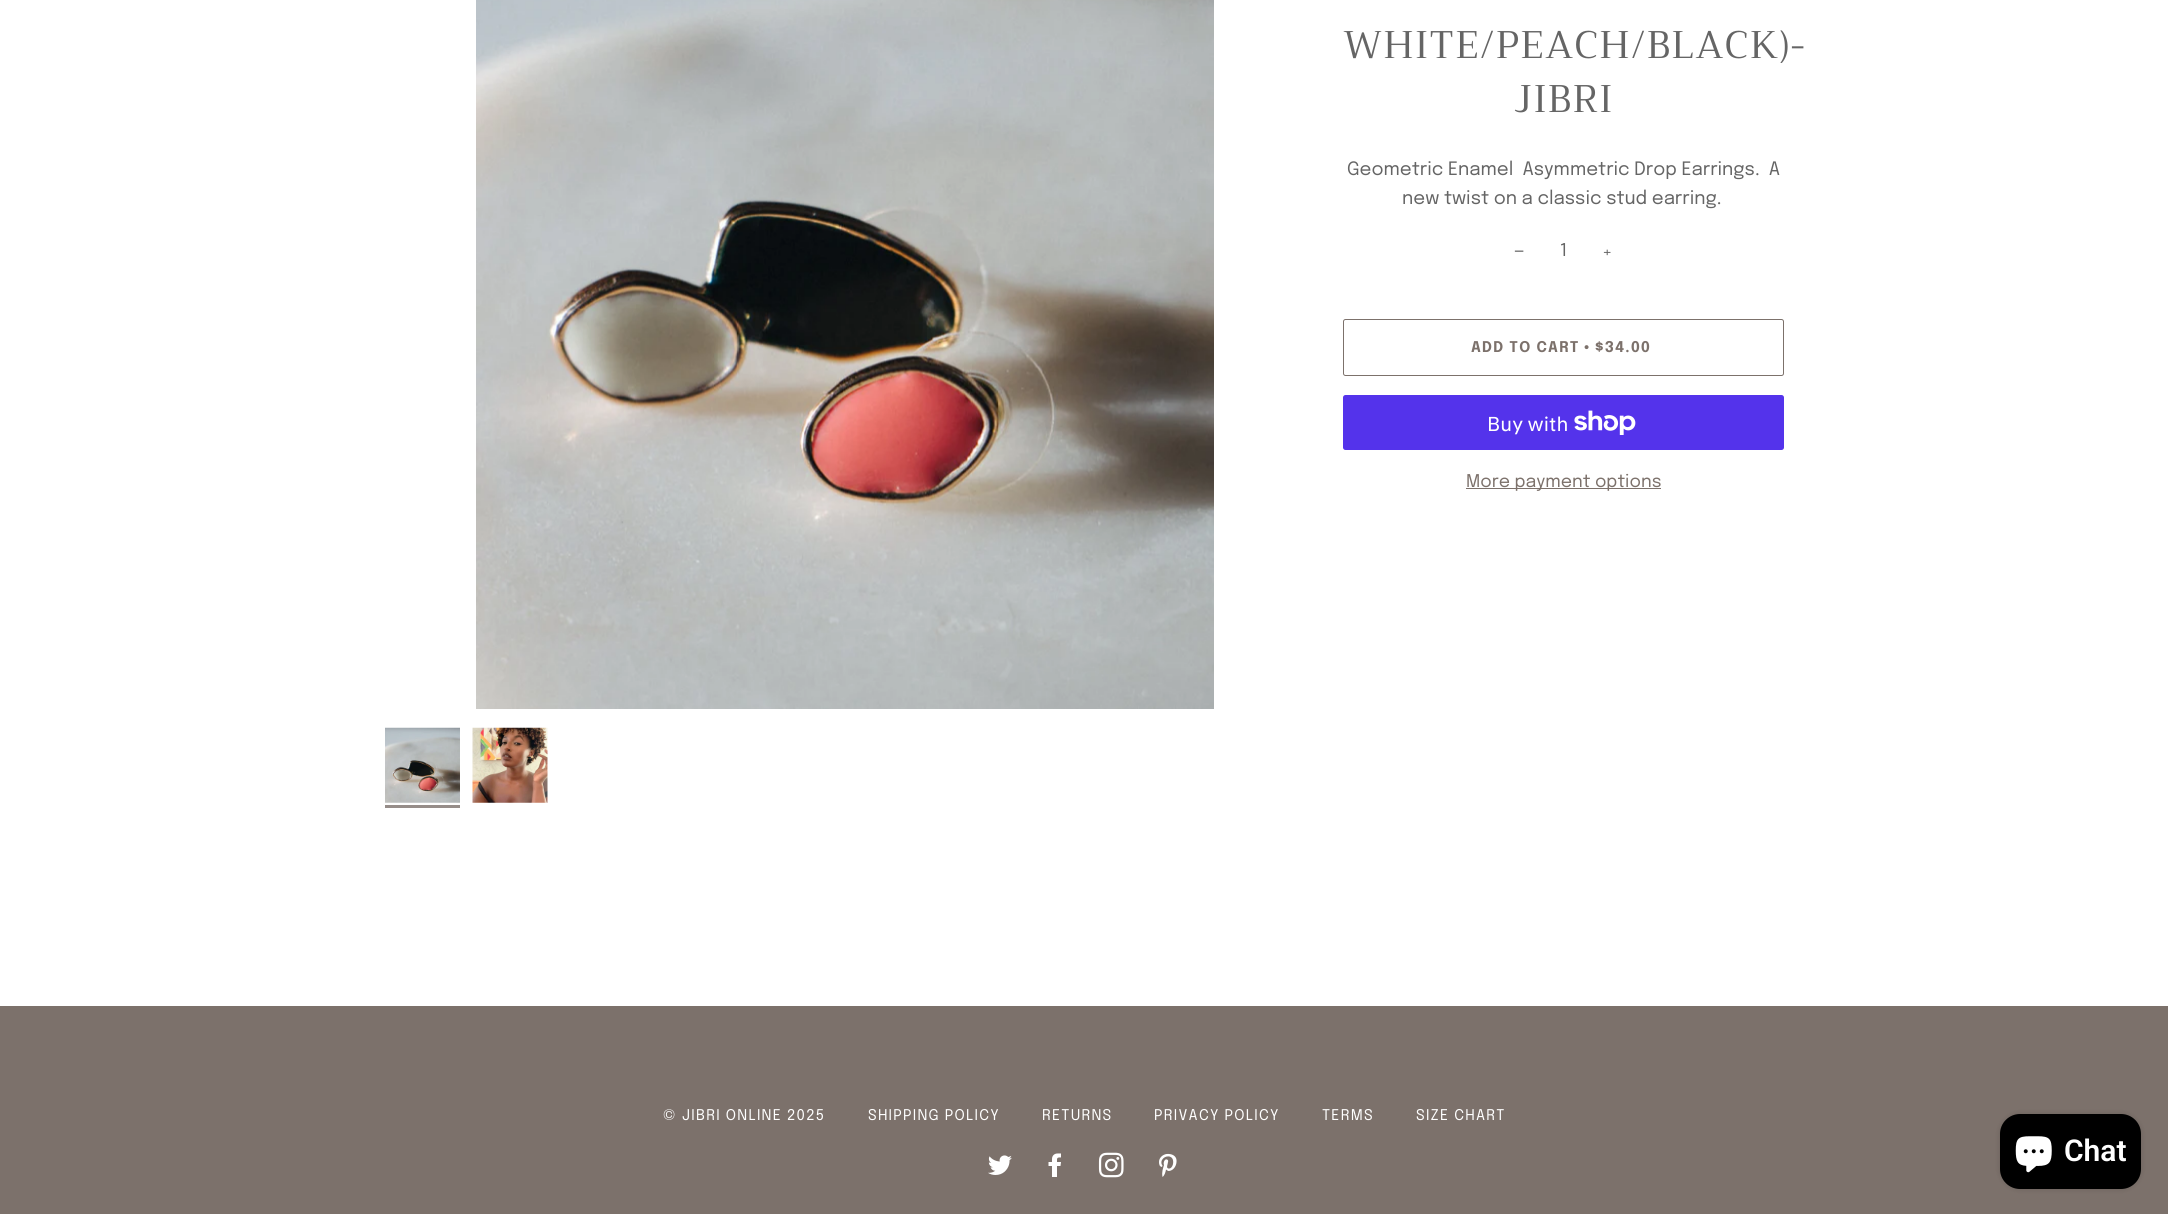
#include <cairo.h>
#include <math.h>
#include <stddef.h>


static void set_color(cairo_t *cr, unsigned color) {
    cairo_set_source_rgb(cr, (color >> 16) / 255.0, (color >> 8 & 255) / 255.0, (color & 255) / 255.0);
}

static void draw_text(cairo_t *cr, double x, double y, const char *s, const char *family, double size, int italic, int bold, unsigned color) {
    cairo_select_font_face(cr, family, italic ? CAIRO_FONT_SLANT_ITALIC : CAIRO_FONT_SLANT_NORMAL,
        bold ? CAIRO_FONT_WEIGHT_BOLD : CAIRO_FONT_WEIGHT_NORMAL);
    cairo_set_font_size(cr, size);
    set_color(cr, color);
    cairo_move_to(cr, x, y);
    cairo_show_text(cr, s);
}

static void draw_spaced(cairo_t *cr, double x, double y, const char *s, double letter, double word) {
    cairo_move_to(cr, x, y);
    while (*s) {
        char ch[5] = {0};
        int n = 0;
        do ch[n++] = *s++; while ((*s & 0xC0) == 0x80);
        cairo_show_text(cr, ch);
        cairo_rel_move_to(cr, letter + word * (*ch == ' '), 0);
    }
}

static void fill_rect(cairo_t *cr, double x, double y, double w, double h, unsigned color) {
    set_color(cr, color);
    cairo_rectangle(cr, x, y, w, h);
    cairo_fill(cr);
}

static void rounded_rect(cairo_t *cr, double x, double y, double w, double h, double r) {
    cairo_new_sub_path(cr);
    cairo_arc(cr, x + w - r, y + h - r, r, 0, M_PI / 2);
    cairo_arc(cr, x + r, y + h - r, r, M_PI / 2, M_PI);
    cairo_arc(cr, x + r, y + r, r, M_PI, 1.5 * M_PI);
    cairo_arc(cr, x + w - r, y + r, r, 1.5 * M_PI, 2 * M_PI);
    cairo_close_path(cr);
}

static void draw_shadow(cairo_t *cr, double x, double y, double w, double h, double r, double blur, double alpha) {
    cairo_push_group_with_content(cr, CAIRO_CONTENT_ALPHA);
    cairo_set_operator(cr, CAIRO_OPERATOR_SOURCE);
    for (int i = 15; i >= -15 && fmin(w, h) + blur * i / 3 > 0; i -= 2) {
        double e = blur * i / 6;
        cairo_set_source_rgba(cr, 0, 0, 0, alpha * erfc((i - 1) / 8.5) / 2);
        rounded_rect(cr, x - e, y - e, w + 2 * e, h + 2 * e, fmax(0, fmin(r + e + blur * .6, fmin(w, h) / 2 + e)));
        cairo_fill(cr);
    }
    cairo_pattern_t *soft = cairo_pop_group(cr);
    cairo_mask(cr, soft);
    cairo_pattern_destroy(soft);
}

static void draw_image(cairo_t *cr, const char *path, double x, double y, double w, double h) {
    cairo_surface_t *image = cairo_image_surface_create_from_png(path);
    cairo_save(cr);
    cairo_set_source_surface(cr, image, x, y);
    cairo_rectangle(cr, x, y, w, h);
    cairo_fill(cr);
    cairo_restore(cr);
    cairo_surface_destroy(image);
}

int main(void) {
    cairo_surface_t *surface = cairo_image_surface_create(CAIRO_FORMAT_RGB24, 2168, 1214);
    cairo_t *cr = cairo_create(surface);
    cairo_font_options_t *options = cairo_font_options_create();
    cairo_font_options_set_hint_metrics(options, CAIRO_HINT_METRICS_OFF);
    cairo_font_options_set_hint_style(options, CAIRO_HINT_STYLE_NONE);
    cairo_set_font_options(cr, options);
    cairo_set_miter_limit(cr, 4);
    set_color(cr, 0xFFFFFF);
    cairo_paint(cr);
    draw_image(cr, "assets/img1.png", 476, 0, 738, 709);
    draw_image(cr, "assets/img2.png", 385, 727, 75, 76);
    fill_rect(cr, 385, 805, 75, 3, 0x968D89);
    draw_image(cr, "assets/img3.png", 472, 727, 76, 76);
    cairo_select_font_face(cr, "Trirong", CAIRO_FONT_SLANT_NORMAL, CAIRO_FONT_WEIGHT_NORMAL);
    cairo_set_font_size(cr, 38.5);
    set_color(cr, 0x656565);
    draw_spaced(cr, 1343, 58, "WHITE/PEACH/BLACK)-", 1.25, 0);
    draw_spaced(cr, 1514, 112, "JIBRI", 1.25, 0);
    draw_text(cr, 1347, 175, "Geometric Enamel  Asymmetric Drop Earrings.  A", "Epilogue", 18.4, 0, 0, 0x656565);
    draw_text(cr, 1402, 204, "new twist on a classic stud earring.", "Epilogue", 18.4, 0, 0, 0x656565);
    draw_text(cr, 1514, 257, "−", "Liberation Sans", 17.5, 0, 0, 0x656565);
    draw_text(cr, 1560, 256, "1", "Epilogue", 17.5, 0, 0, 0x656565);
    draw_text(cr, 1602, 257, "+", "Epilogue", 17.5, 0, 0, 0x656565);
    rounded_rect(cr, 1343.5, 319.5, 440, 56, 2);
    set_color(cr, 0x7C716B);
    cairo_set_line_width(cr, 1);
    cairo_stroke(cr);
    cairo_select_font_face(cr, "Epilogue", CAIRO_FONT_SLANT_NORMAL, CAIRO_FONT_WEIGHT_BOLD);
    cairo_set_font_size(cr, 14.75);
    draw_spaced(cr, 1471, 352, "ADD TO CART", 1.25, 0);
    cairo_select_font_face(cr, "Liberation Serif", CAIRO_FONT_SLANT_NORMAL, CAIRO_FONT_WEIGHT_BOLD);
    draw_spaced(cr, 1584, 352, "•", 1.25, 0);
    cairo_select_font_face(cr, "Epilogue", CAIRO_FONT_SLANT_NORMAL, CAIRO_FONT_WEIGHT_BOLD);
    draw_spaced(cr, 1595, 352, "$34.00", 1.25, 0);
    set_color(cr, 0x5433EB);
    rounded_rect(cr, 1343, 395, 441, 55, 2.5);
    cairo_fill(cr);
    draw_text(cr, 1487, 431, "Buy with", "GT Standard", 20, 0, 0, 0xFFFFFF);
    draw_image(cr, "assets/img4.png", 1574, 410, 62, 25);
    fill_rect(cr, 1466, 488, 195, 1, 0x7C716B);
    draw_text(cr, 1466, 487, "More payment options", "Epilogue", 17.5, 0, 0, 0x7C716B);
    fill_rect(cr, 0, 1006, 2168, 208, 0x7C716B);
    cairo_set_font_size(cr, 14.75);
    set_color(cr, 0xFFFFFF);
    draw_spaced(cr, 663, 1120, "© JIBRI ONLINE 2025", 1.25, 0);
    draw_spaced(cr, 868, 1120, "SHIPPING POLICY", 1.25, 0);
    draw_spaced(cr, 1042, 1120, "RETURNS", 1.25, 0);
    draw_spaced(cr, 1154, 1120, "PRIVACY POLICY", 1.25, 0);
    draw_spaced(cr, 1322, 1120, "TERMS", 1.25, 0);
    draw_spaced(cr, 1416, 1120, "SIZE CHART", 1.25, 0);
    draw_image(cr, "assets/img5.png", 988, 1155, 24, 20);
    draw_image(cr, "assets/img6.png", 1048, 1153, 13, 24);
    draw_image(cr, "assets/img7.png", 1098, 1152, 26, 26);
    draw_image(cr, "assets/img8.png", 1159, 1153, 18, 24);
    set_color(cr, 0x000000);
    draw_shadow(cr, 2000, 1114, 141, 75, 20, 3, 0.15);
    set_color(cr, 0x000000);
    rounded_rect(cr, 2000, 1114, 141, 75, 20);
    cairo_fill(cr);
    draw_image(cr, "assets/img9.png", 2015, 1136, 37, 37);
    draw_text(cr, 2064, 1161, "Chat", "Roboto SemiBold", 30, 0, 0, 0xFFFFFF);
    cairo_surface_write_to_png(surface, "output.png");
    cairo_font_options_destroy(options);
    cairo_destroy(cr);
    cairo_surface_destroy(surface);
    return 0;
}
